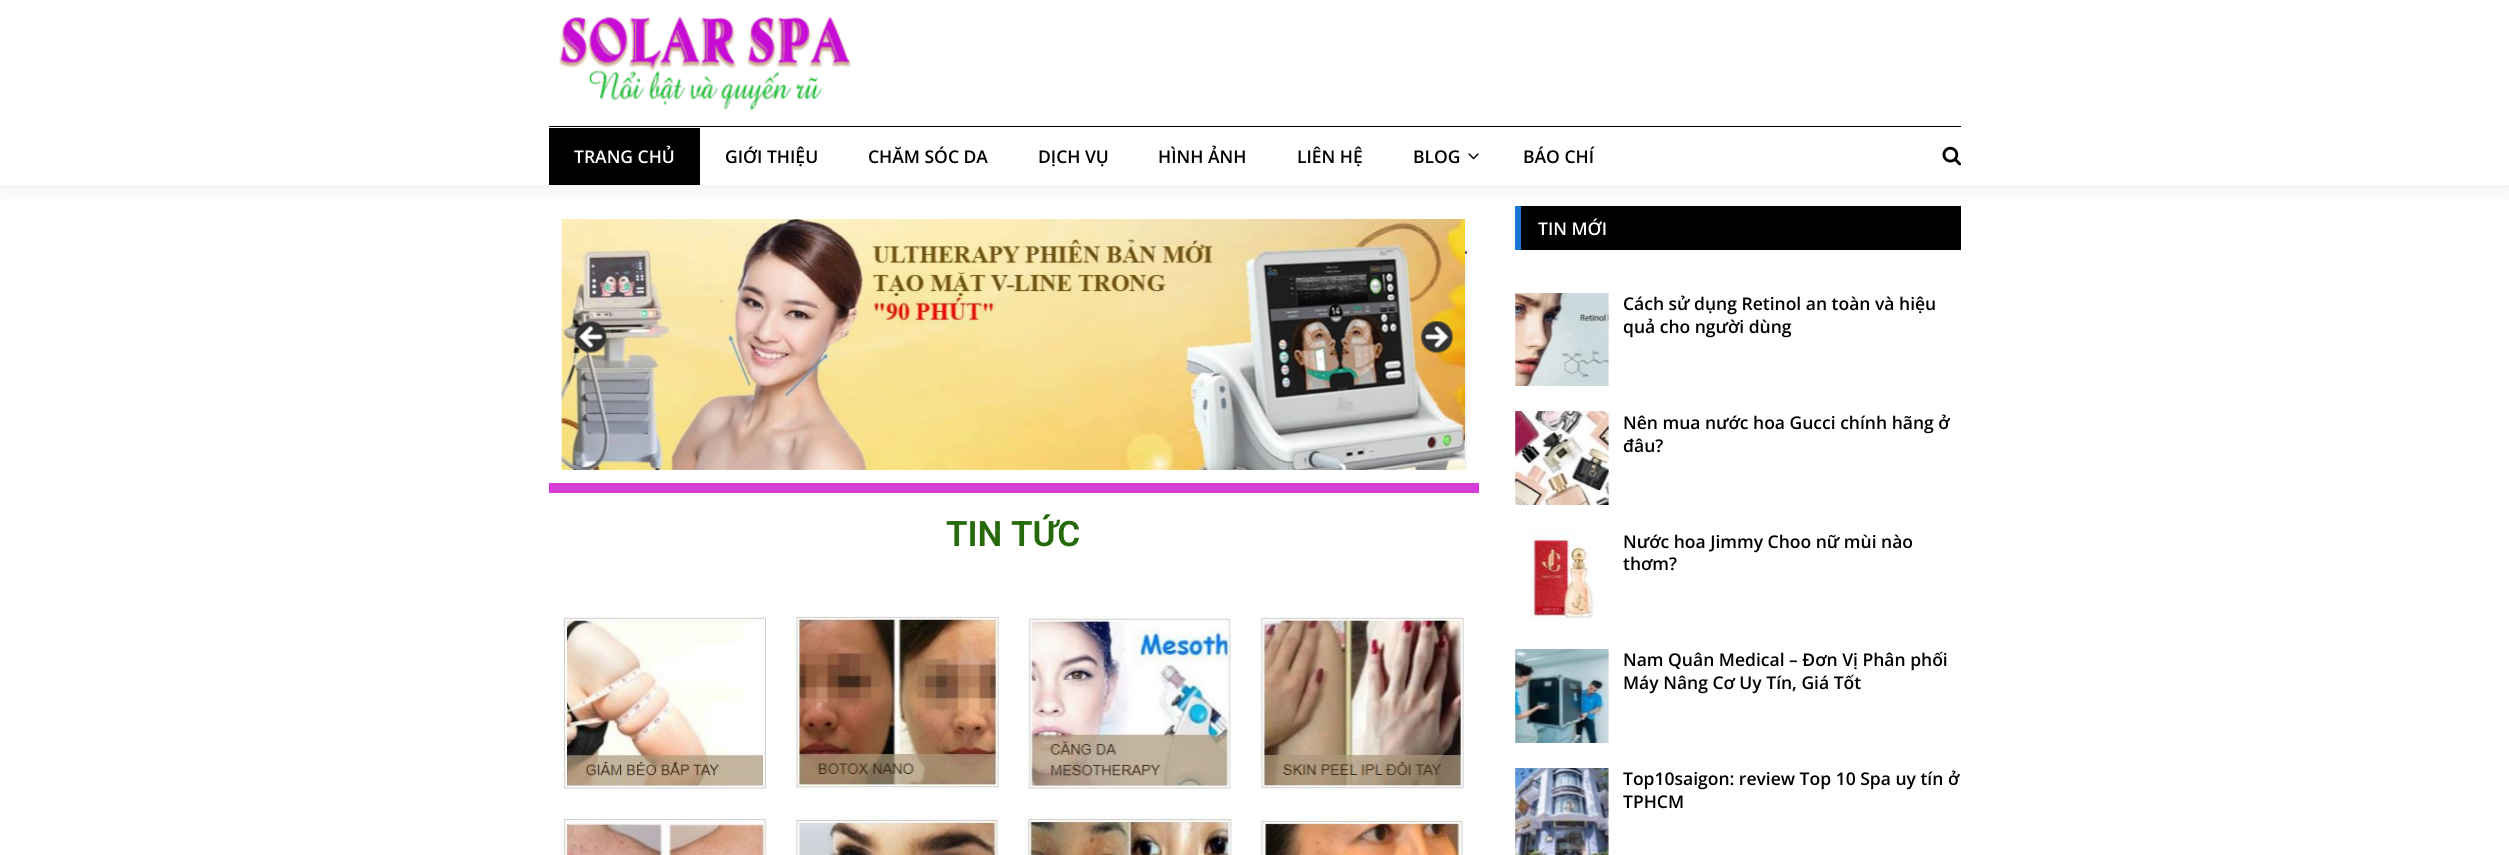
#include <cairo.h>
#include <math.h>
#include <stddef.h>


static void set_color(cairo_t *cr, unsigned color) {
    cairo_set_source_rgb(cr, (color >> 16) / 255.0, (color >> 8 & 255) / 255.0, (color & 255) / 255.0);
}

static void draw_text(cairo_t *cr, double x, double y, const char *s, const char *family, double size, int italic, int bold, unsigned color) {
    cairo_select_font_face(cr, family, italic ? CAIRO_FONT_SLANT_ITALIC : CAIRO_FONT_SLANT_NORMAL,
        bold ? CAIRO_FONT_WEIGHT_BOLD : CAIRO_FONT_WEIGHT_NORMAL);
    cairo_set_font_size(cr, size);
    set_color(cr, color);
    cairo_move_to(cr, x, y);
    cairo_show_text(cr, s);
}

static void fill_rect(cairo_t *cr, double x, double y, double w, double h, unsigned color) {
    set_color(cr, color);
    cairo_rectangle(cr, x, y, w, h);
    cairo_fill(cr);
}

static void rounded_rect(cairo_t *cr, double x, double y, double w, double h, double r) {
    cairo_new_sub_path(cr);
    cairo_arc(cr, x + w - r, y + h - r, r, 0, M_PI / 2);
    cairo_arc(cr, x + r, y + h - r, r, M_PI / 2, M_PI);
    cairo_arc(cr, x + r, y + r, r, M_PI, 1.5 * M_PI);
    cairo_arc(cr, x + w - r, y + r, r, 1.5 * M_PI, 2 * M_PI);
    cairo_close_path(cr);
}

static void draw_shadow(cairo_t *cr, double x, double y, double w, double h, double r, double blur, double alpha) {
    cairo_push_group_with_content(cr, CAIRO_CONTENT_ALPHA);
    cairo_set_operator(cr, CAIRO_OPERATOR_SOURCE);
    for (int i = 15; i >= -15 && fmin(w, h) + blur * i / 3 > 0; i -= 2) {
        double e = blur * i / 6;
        cairo_set_source_rgba(cr, 0, 0, 0, alpha * erfc((i - 1) / 8.5) / 2);
        rounded_rect(cr, x - e, y - e, w + 2 * e, h + 2 * e, fmax(0, fmin(r + e + blur * .6, fmin(w, h) / 2 + e)));
        cairo_fill(cr);
    }
    cairo_pattern_t *soft = cairo_pop_group(cr);
    cairo_mask(cr, soft);
    cairo_pattern_destroy(soft);
}

static void draw_image(cairo_t *cr, const char *path, double x, double y, double w, double h) {
    cairo_surface_t *image = cairo_image_surface_create_from_png(path);
    cairo_save(cr);
    cairo_set_source_surface(cr, image, x, y);
    cairo_rectangle(cr, x, y, w, h);
    cairo_fill(cr);
    cairo_restore(cr);
    cairo_surface_destroy(image);
}

int main(void) {
    cairo_surface_t *surface = cairo_image_surface_create(CAIRO_FORMAT_RGB24, 2509, 855);
    cairo_t *cr = cairo_create(surface);
    cairo_font_options_t *options = cairo_font_options_create();
    cairo_font_options_set_hint_metrics(options, CAIRO_HINT_METRICS_OFF);
    cairo_font_options_set_hint_style(options, CAIRO_HINT_STYLE_NONE);
    cairo_set_font_options(cr, options);
    cairo_set_miter_limit(cr, 4);
    set_color(cr, 0xFFFFFF);
    cairo_paint(cr);
    cairo_save(cr);
    cairo_rectangle(cr, 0, 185, 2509, 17);
    cairo_clip(cr);
    set_color(cr, 0x999999);
    draw_shadow(cr, 0, 1, 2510, 185, 0, 12.5, 0.2);
    cairo_restore(cr);
    draw_image(cr, "assets/img1.png", 558, 16, 294, 95);
    fill_rect(cr, 549, 126, 1412, 1, 0x000000);
    fill_rect(cr, 549, 128, 151, 57, 0x000000);
    draw_text(cr, 574, 163, "TRANG CHỦ", "Open Sans SemiBold", 17.5, 0, 0, 0xFFFFFF);
    draw_text(cr, 725, 163, "GIỚI THIỆU", "Open Sans SemiBold", 17.5, 0, 0, 0x000000);
    draw_text(cr, 868, 163, "CHĂM SÓC DA", "Open Sans SemiBold", 17.5, 0, 0, 0x000000);
    draw_text(cr, 1038, 163, "DỊCH VỤ", "Open Sans SemiBold", 17.5, 0, 0, 0x000000);
    draw_text(cr, 1158, 163, "HÌNH ẢNH", "Open Sans SemiBold", 17.5, 0, 0, 0x000000);
    draw_text(cr, 1297, 163, "LIÊN HỆ", "Open Sans SemiBold", 17.5, 0, 0, 0x000000);
    draw_text(cr, 1413, 163, "BLOG", "Open Sans SemiBold", 17.5, 0, 0, 0x000000);
    draw_image(cr, "assets/img2.png", 1468, 153, 11, 7);
    draw_text(cr, 1523, 163, "BÁO CHÍ", "Open Sans SemiBold", 17.5, 0, 0, 0x000000);
    draw_image(cr, "assets/img3.png", 1942, 146, 19, 20);
    fill_rect(cr, 549, 483, 930, 10, 0xD73CD7);
    draw_image(cr, "assets/img4.png", 561, 219, 904, 251);
    draw_image(cr, "assets/img5.png", 1465, 219, 2, 251);
    draw_image(cr, "assets/img6.png", 574, 321, 33, 32);
    draw_image(cr, "assets/img7.png", 1421, 321, 32, 32);
    draw_text(cr, 946, 546, "TIN TỨC", "Roboto SemiBold", 35, 0, 0, 0x266A0C);
    draw_image(cr, "assets/img8.png", 561, 615, 205, 175);
    draw_image(cr, "assets/img9.png", 793, 615, 206, 174);
    draw_image(cr, "assets/img10.png", 1026, 615, 208, 174);
    draw_image(cr, "assets/img11.png", 1258, 615, 206, 175);
    draw_image(cr, "assets/img12.png", 561, 816, 206, 39);
    draw_image(cr, "assets/img13.png", 794, 816, 206, 39);
    draw_image(cr, "assets/img14.png", 1026, 816, 206, 39);
    draw_image(cr, "assets/img15.png", 1259, 816, 207, 39);
    fill_rect(cr, 1521, 206, 440, 44, 0x000000);
    fill_rect(cr, 1515, 206, 6, 44, 0x1976D2);
    draw_text(cr, 1538, 235, "TIN MỚI", "Open Sans SemiBold", 17.5, 0, 0, 0xFFFFFF);
    draw_image(cr, "assets/img16.png", 1515, 293, 94, 93);
    draw_text(cr, 1623, 310, "Cách sử dụng Retinol an toàn và hiệu", "Open Sans SemiBold", 17.5, 0, 0, 0x000000);
    draw_text(cr, 1623, 333, "quả cho người dùng", "Open Sans SemiBold", 17.5, 0, 0, 0x000000);
    draw_image(cr, "assets/img17.png", 1515, 411, 94, 94);
    draw_text(cr, 1623, 429, "Nên mua nước hoa Gucci chính hãng ở", "Open Sans SemiBold", 17.5, 0, 0, 0x000000);
    draw_text(cr, 1623, 452, "đâu?", "Open Sans SemiBold", 17.5, 0, 0, 0x000000);
    draw_image(cr, "assets/img18.png", 1529, 530, 68, 90);
    draw_text(cr, 1623, 548, "Nước hoa Jimmy Choo nữ mùi nào", "Open Sans SemiBold", 17.5, 0, 0, 0x000000);
    draw_text(cr, 1623, 570, "thơm?", "Open Sans SemiBold", 17.5, 0, 0, 0x000000);
    draw_image(cr, "assets/img19.png", 1515, 649, 94, 94);
    draw_text(cr, 1623, 666, "Nam Quân Medical – Đơn Vị Phân phối", "Open Sans SemiBold", 17.5, 0, 0, 0x000000);
    draw_text(cr, 1623, 689, "Máy Nâng Cơ Uy Tín, Giá Tốt", "Open Sans SemiBold", 17.5, 0, 0, 0x000000);
    draw_image(cr, "assets/img20.png", 1515, 768, 94, 87);
    draw_text(cr, 1623, 785, "Top10saigon: review Top 10 Spa uy tín ở", "Open Sans SemiBold", 17.5, 0, 0, 0x000000);
    draw_text(cr, 1623, 808, "TPHCM", "Open Sans SemiBold", 17.5, 0, 0, 0x000000);
    cairo_surface_write_to_png(surface, "output.png");
    cairo_font_options_destroy(options);
    cairo_destroy(cr);
    cairo_surface_destroy(surface);
    return 0;
}
